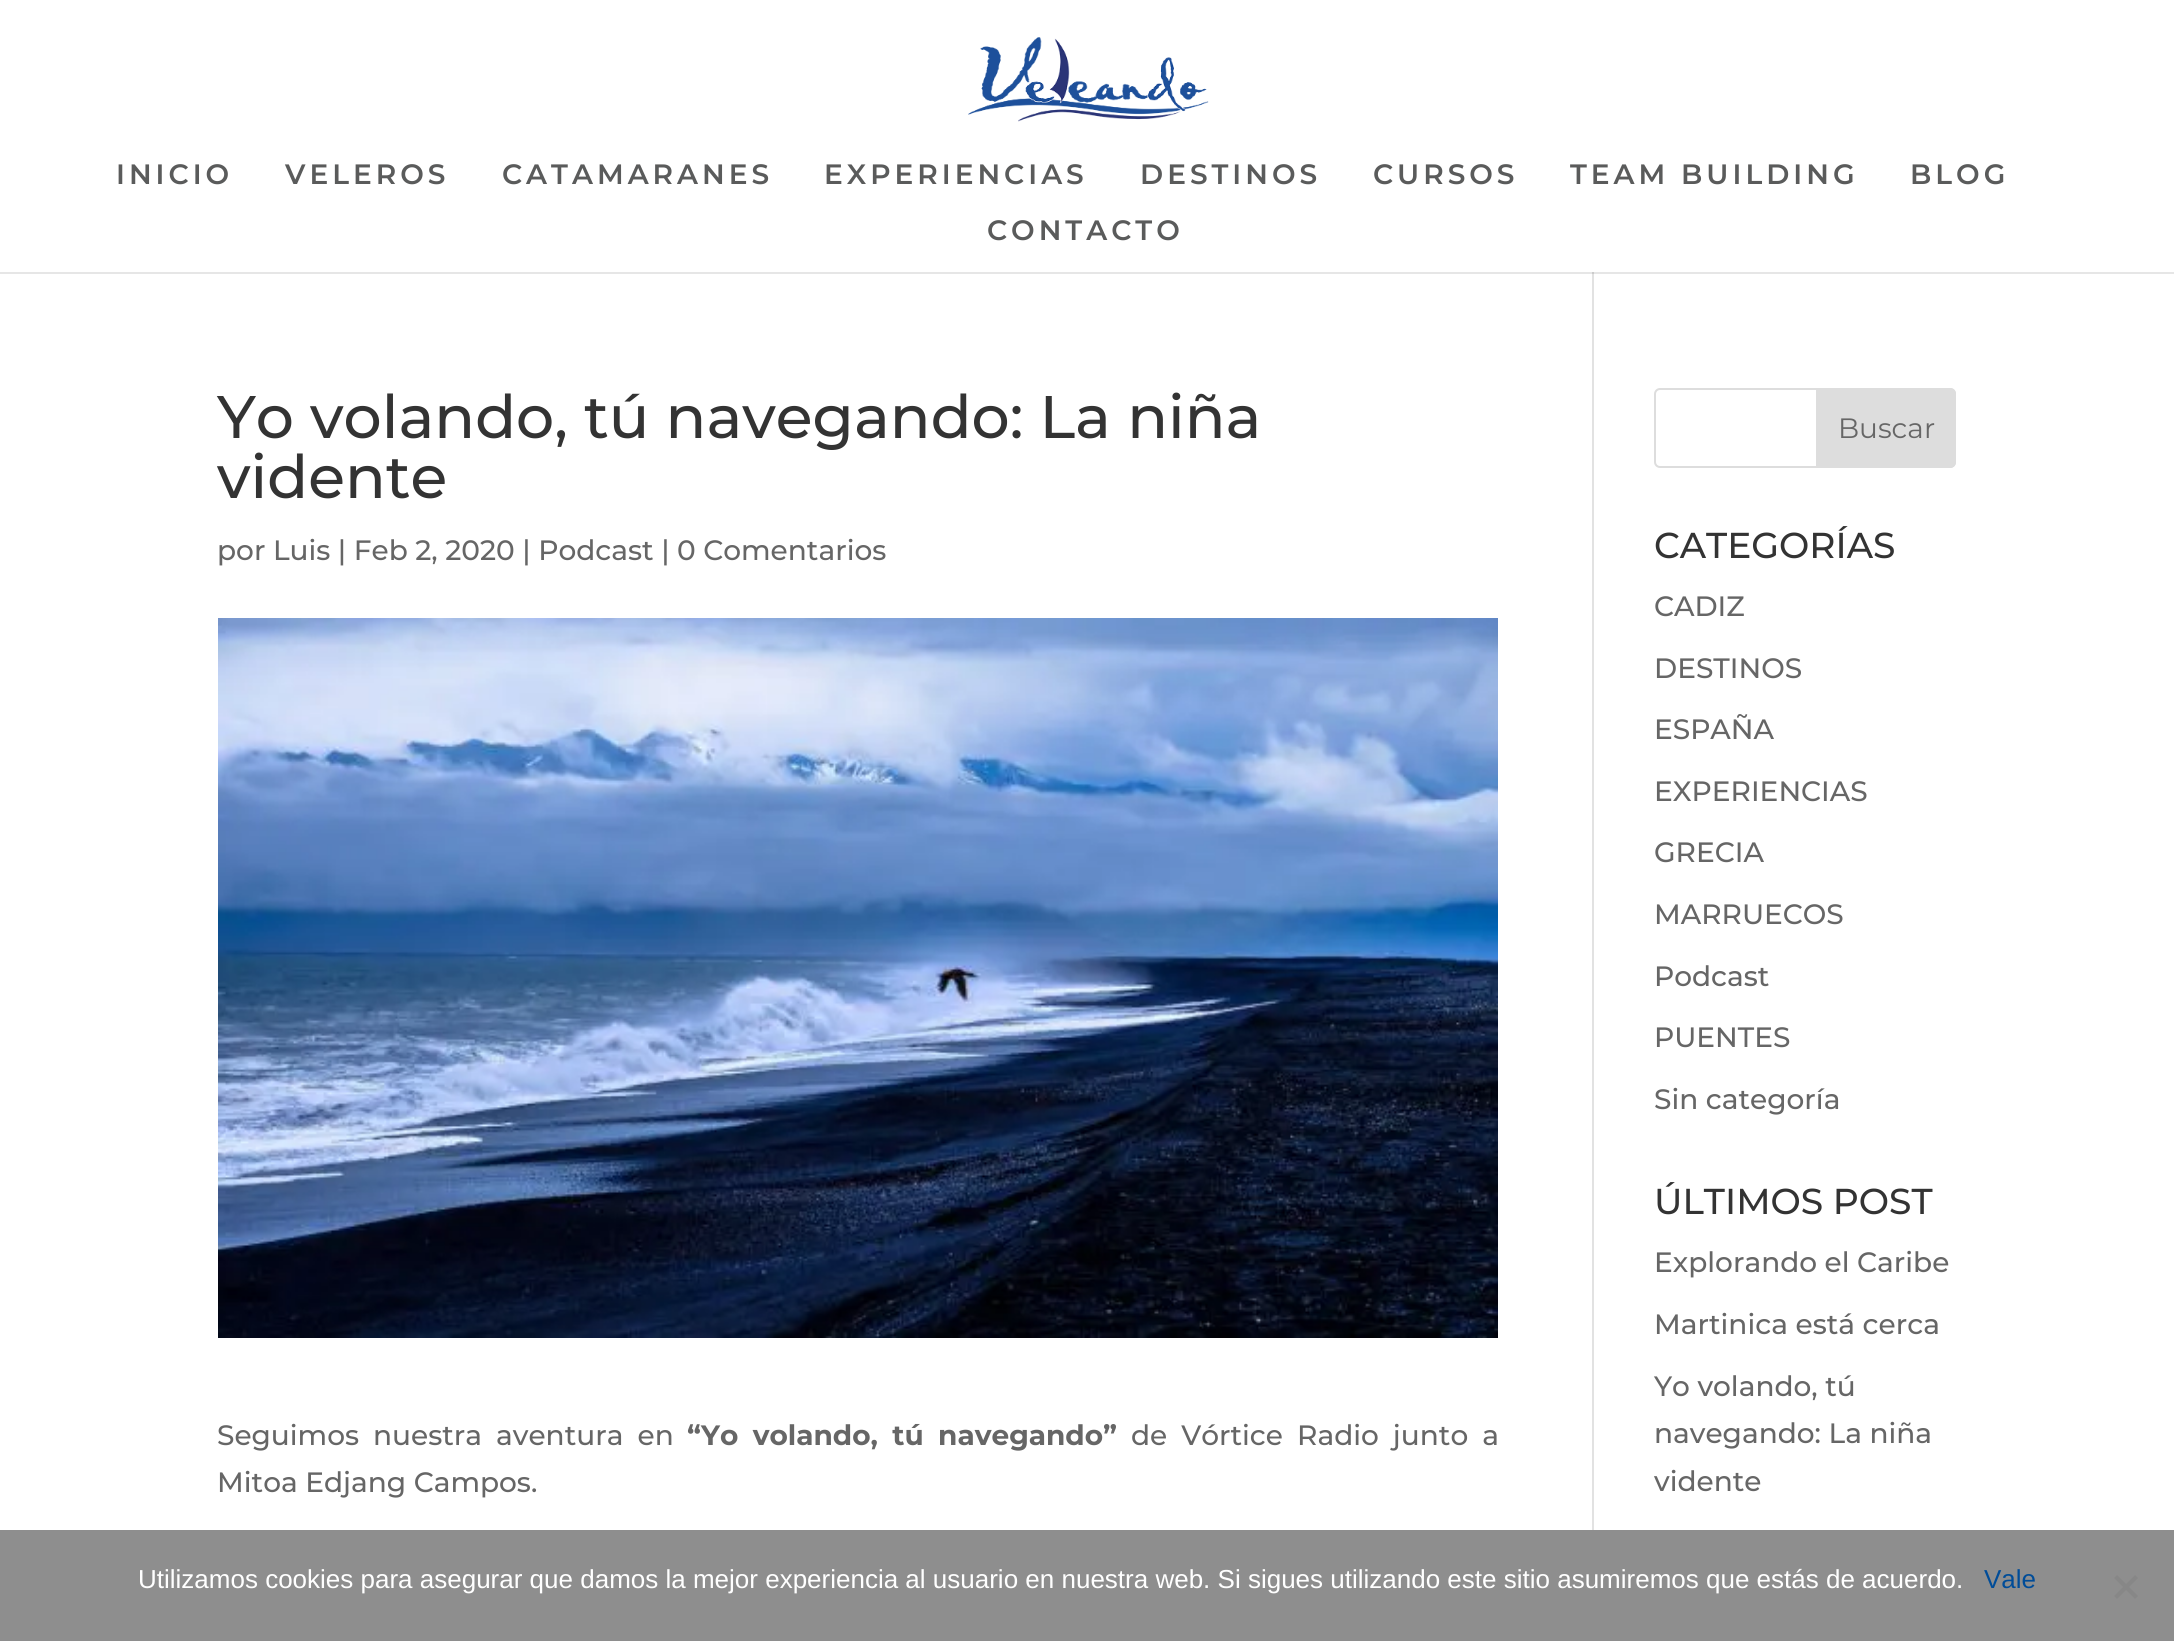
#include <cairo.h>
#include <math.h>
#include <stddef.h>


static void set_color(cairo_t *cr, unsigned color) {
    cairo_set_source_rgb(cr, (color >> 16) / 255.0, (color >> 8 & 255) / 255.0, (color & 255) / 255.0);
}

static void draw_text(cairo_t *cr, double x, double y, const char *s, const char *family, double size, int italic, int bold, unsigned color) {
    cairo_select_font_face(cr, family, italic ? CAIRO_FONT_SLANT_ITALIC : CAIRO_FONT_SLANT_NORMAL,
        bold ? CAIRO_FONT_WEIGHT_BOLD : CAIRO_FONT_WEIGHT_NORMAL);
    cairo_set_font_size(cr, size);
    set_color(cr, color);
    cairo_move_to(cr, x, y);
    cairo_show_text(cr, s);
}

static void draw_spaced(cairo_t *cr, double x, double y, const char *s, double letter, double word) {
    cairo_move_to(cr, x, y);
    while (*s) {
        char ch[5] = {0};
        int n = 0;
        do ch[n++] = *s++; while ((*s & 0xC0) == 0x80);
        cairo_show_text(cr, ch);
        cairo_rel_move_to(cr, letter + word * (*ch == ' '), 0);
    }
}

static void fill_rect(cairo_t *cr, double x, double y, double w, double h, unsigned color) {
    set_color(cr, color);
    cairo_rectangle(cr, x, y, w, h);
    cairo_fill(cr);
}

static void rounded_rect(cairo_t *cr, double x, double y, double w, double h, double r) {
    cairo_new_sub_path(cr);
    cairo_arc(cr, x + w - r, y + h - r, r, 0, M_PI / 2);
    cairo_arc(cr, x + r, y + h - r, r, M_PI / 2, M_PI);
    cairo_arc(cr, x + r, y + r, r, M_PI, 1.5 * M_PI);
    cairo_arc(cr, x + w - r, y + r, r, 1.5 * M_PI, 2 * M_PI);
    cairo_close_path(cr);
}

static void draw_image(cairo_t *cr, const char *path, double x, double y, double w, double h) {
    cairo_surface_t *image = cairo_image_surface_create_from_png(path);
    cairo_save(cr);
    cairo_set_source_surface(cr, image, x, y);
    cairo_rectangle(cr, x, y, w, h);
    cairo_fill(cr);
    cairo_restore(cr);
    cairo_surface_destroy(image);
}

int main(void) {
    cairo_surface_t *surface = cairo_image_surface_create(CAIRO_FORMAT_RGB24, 2174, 1641);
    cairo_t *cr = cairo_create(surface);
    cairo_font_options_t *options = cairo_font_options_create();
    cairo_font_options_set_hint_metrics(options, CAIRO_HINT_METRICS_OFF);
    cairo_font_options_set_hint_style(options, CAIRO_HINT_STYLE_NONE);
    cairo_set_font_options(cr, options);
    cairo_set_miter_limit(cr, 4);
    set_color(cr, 0xFFFFFF);
    cairo_paint(cr);
    draw_image(cr, "assets/img1.png", 968, 37, 241, 85);
    cairo_select_font_face(cr, "Montserrat SemiBold", CAIRO_FONT_SLANT_NORMAL, CAIRO_FONT_WEIGHT_NORMAL);
    cairo_set_font_size(cr, 28);
    set_color(cr, 0x5A5B5B);
    draw_spaced(cr, 116, 184, "INICIO", 4, 0);
    draw_spaced(cr, 285, 184, "VELEROS", 4, 0);
    draw_spaced(cr, 502, 184, "CATAMARANES", 4, 0);
    draw_spaced(cr, 824, 184, "EXPERIENCIAS", 4, 0);
    draw_spaced(cr, 1140, 184, "DESTINOS", 4, 0);
    draw_spaced(cr, 1373, 184, "CURSOS", 4, 0);
    draw_spaced(cr, 1570, 184, "TEAM BUILDING", 4, 0);
    draw_spaced(cr, 1910, 184, "BLOG", 4, 0);
    draw_spaced(cr, 987, 240, "CONTACTO", 4, 0);
    fill_rect(cr, 0, 272, 2174, 2, 0xE6E6E6);
    fill_rect(cr, 1592, 272, 2, 1258, 0xE2E2E2);
    fill_rect(cr, 1592, 272, 2, 2, 0xCBCBCB);
    draw_text(cr, 217, 438, "Yo volando, tú navegando: La niña", "Montserrat Medium", 60, 0, 0, 0x333333);
    draw_text(cr, 217, 498, "vidente", "Montserrat Medium", 60, 0, 0, 0x333333);
    draw_text(cr, 217, 560, "por Luis | Feb 2, 2020 | Podcast | 0 Comentarios", "Montserrat Medium", 28, 0, 0, 0x666666);
    draw_image(cr, "assets/img2.png", 218, 618, 1280, 720);
    draw_spaced(cr, 217, 1445, "Seguimos nuestra aventura en", 0, 6.5);
    cairo_select_font_face(cr, "Montserrat", CAIRO_FONT_SLANT_NORMAL, CAIRO_FONT_WEIGHT_BOLD);
    draw_spaced(cr, 687, 1445, "“Yo volando, tú navegando”", 0, 6.5);
    cairo_select_font_face(cr, "Montserrat Medium", CAIRO_FONT_SLANT_NORMAL, CAIRO_FONT_WEIGHT_NORMAL);
    draw_spaced(cr, 1131, 1445, "de Vórtice Radio junto a", 0, 6.5);
    draw_text(cr, 217, 1492, "Mitoa Edjang Campos.", "Montserrat Medium", 28, 0, 0, 0x666666);
    rounded_rect(cr, 1655, 389, 300, 78, 5);
    set_color(cr, 0xDDDDDD);
    cairo_stroke(cr);
    cairo_new_path(cr);
    cairo_move_to(cr, 1817, 389);
    cairo_line_to(cr, 1950, 389);
    cairo_curve_to(cr, 1953, 389, 1955, 391, 1955, 394);
    cairo_line_to(cr, 1955, 462);
    cairo_curve_to(cr, 1955, 465, 1953, 467, 1950, 467);
    cairo_line_to(cr, 1817, 467);
    cairo_close_path(cr);
    cairo_fill_preserve(cr);
    cairo_stroke(cr);
    draw_text(cr, 1838, 438, "Buscar", "Montserrat", 28, 0, 0, 0x666666);
    draw_text(cr, 1654, 558, "CATEGORÍAS", "Montserrat Medium", 36, 0, 0, 0x333333);
    draw_text(cr, 1654, 616, "CADIZ", "Montserrat Medium", 28, 0, 0, 0x666666);
    draw_text(cr, 1654, 678, "DESTINOS", "Montserrat Medium", 28, 0, 0, 0x666666);
    draw_text(cr, 1654, 739, "ESPAÑA", "Montserrat Medium", 28, 0, 0, 0x666666);
    draw_text(cr, 1654, 801, "EXPERIENCIAS", "Montserrat Medium", 28, 0, 0, 0x666666);
    draw_text(cr, 1654, 862, "GRECIA", "Montserrat Medium", 28, 0, 0, 0x666666);
    draw_text(cr, 1654, 924, "MARRUECOS", "Montserrat Medium", 28, 0, 0, 0x666666);
    draw_text(cr, 1654, 986, "Podcast", "Montserrat Medium", 28, 0, 0, 0x666666);
    draw_text(cr, 1654, 1047, "PUENTES", "Montserrat Medium", 28, 0, 0, 0x666666);
    draw_text(cr, 1654, 1109, "Sin categoría", "Montserrat Medium", 28, 0, 0, 0x666666);
    draw_text(cr, 1654, 1214, "ÚLTIMOS POST", "Montserrat Medium", 36, 0, 0, 0x333333);
    draw_text(cr, 1654, 1272, "Explorando el Caribe", "Montserrat Medium", 28, 0, 0, 0x666666);
    draw_text(cr, 1654, 1334, "Martinica está cerca", "Montserrat Medium", 28, 0, 0, 0x666666);
    draw_text(cr, 1654, 1396, "Yo volando, tú", "Montserrat Medium", 28, 0, 0, 0x666666);
    draw_text(cr, 1654, 1443, "navegando: La niña", "Montserrat Medium", 28, 0, 0, 0x666666);
    draw_text(cr, 1654, 1491, "vidente", "Montserrat Medium", 28, 0, 0, 0x666666);
    fill_rect(cr, 0, 1530, 2174, 111, 0x8E8E8E);
    draw_text(cr, 138, 1588, "Utilizamos cookies para asegurar que damos la mejor experiencia al usuario en nuestra web. Si sigues utilizando este sitio asumiremos que estás de acuerdo.", "Liberation Sans", 26, 0, 0, 0xFFFFFF);
    draw_text(cr, 1984, 1588, "Vale", "Liberation Sans", 26, 0, 0, 0x004C98);
    set_color(cr, 0x878787);
    cairo_new_path(cr);
    cairo_move_to(cr, 2135, 1575);
    cairo_line_to(cr, 2138, 1578);
    cairo_line_to(cr, 2117, 1599);
    cairo_line_to(cr, 2114, 1596);
    cairo_close_path(cr);
    cairo_fill(cr);
    cairo_new_path(cr);
    cairo_move_to(cr, 2114, 1578);
    cairo_line_to(cr, 2117, 1575);
    cairo_line_to(cr, 2138, 1596);
    cairo_line_to(cr, 2135, 1599);
    cairo_close_path(cr);
    cairo_fill(cr);
    cairo_surface_write_to_png(surface, "output.png");
    cairo_font_options_destroy(options);
    cairo_destroy(cr);
    cairo_surface_destroy(surface);
    return 0;
}
